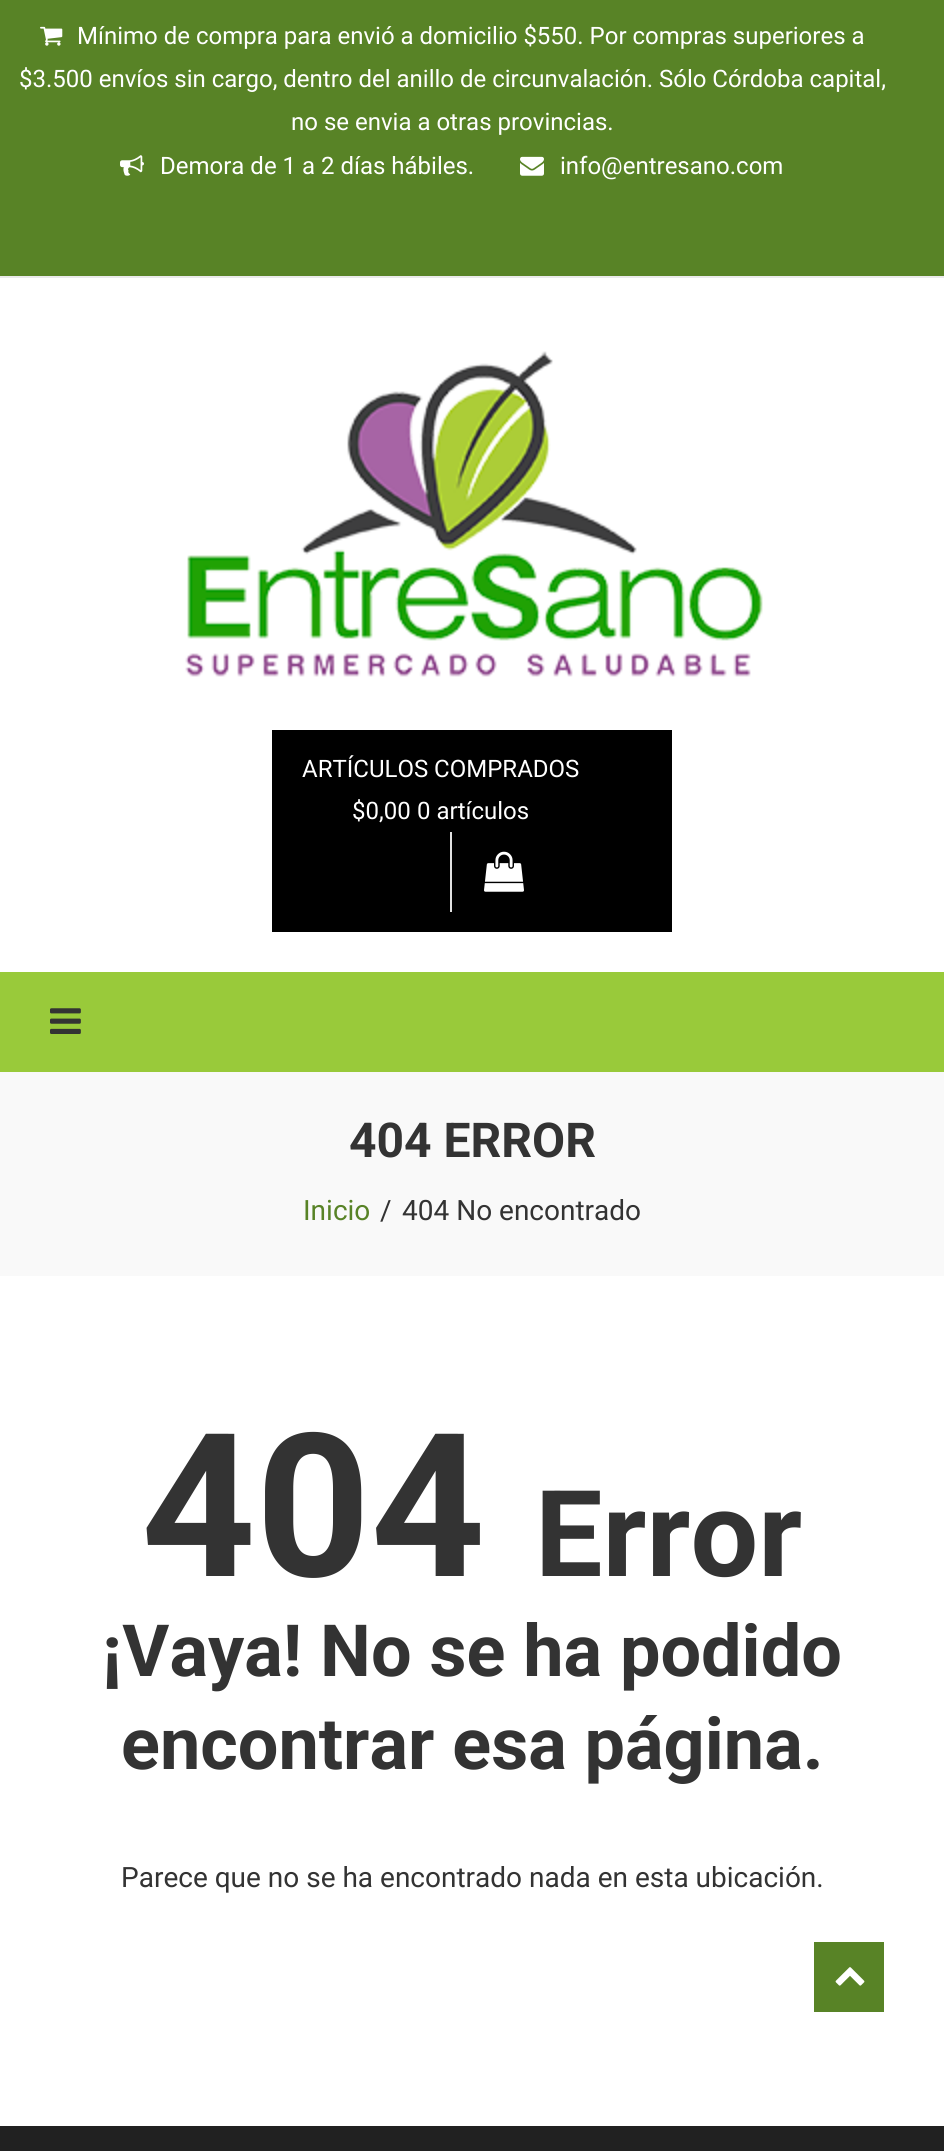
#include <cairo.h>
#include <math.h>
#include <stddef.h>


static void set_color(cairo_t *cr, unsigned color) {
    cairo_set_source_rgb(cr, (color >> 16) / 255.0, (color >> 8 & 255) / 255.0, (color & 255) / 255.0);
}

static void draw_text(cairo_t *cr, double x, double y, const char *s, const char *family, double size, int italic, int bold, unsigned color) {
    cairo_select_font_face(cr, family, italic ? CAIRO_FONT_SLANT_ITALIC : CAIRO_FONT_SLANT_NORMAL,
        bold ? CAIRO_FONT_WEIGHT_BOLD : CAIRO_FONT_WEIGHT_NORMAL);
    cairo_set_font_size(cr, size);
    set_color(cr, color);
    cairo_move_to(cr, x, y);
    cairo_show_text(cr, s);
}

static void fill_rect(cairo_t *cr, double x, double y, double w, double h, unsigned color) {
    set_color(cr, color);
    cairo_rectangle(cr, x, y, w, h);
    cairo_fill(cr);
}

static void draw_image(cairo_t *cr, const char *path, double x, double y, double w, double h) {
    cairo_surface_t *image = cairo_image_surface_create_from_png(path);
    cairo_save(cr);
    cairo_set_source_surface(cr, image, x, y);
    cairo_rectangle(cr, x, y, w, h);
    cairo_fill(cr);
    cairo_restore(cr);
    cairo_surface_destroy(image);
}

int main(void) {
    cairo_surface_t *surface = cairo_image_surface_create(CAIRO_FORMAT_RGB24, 944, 2151);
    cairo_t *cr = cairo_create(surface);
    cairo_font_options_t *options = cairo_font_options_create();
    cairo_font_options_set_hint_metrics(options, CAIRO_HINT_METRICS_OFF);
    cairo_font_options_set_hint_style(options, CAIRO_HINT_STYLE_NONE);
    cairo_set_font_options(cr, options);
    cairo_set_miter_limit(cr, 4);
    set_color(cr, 0xFFFFFF);
    cairo_paint(cr);
    fill_rect(cr, 0, 0, 944, 276, 0x588326);
    fill_rect(cr, 0, 276, 944, 2, 0xEAEAEA);
    draw_image(cr, "assets/img1.png", 40, 26, 23, 20);
    draw_text(cr, 77, 44, "Mínimo de compra para envió a domicilio $550. Por compras superiores a", "Roboto", 24, 0, 0, 0xFFFFFF);
    draw_text(cr, 19, 87, "$3.500 envíos sin cargo, dentro del anillo de circunvalación. Sólo Córdoba capital,", "Roboto", 24, 0, 0, 0xFFFFFF);
    draw_text(cr, 291, 130, "no se envia a otras provincias.", "Roboto", 24, 0, 0, 0xFFFFFF);
    draw_image(cr, "assets/img2.png", 120, 155, 24, 21);
    draw_text(cr, 160, 174, "Demora de 1 a 2 días hábiles.", "Roboto", 24, 0, 0, 0xFFFFFF);
    draw_image(cr, "assets/img3.png", 520, 156, 24, 20);
    draw_text(cr, 560, 174, "info@entresano.com", "Roboto", 24, 0, 0, 0xFFFFFF);
    draw_image(cr, "assets/img4.png", 185, 351, 578, 326);
    fill_rect(cr, 272, 730, 400, 202, 0x000000);
    draw_text(cr, 302, 777, "ARTÍCULOS COMPRADOS", "Roboto", 24, 0, 0, 0xFFFFFF);
    draw_text(cr, 352, 819, "$0,00", "Roboto", 24, 0, 0, 0xFFFFFF);
    draw_text(cr, 417, 819, "0 artículos", "Roboto", 24, 0, 0, 0xFFFFFF);
    fill_rect(cr, 450, 832, 2, 80, 0xE1E1E1);
    draw_image(cr, "assets/img5.png", 484, 851, 40, 41);
    fill_rect(cr, 0, 972, 944, 100, 0x99CA3A);
    draw_image(cr, "assets/img6.png", 50, 1008, 31, 26);
    fill_rect(cr, 0, 1072, 944, 204, 0xF9F9F9);
    draw_text(cr, 349, 1157, "404 ERROR", "Roboto", 48, 0, 1, 0x333333);
    draw_text(cr, 303, 1220, "Inicio", "Roboto", 28, 0, 0, 0x588326);
    draw_text(cr, 380, 1220, "/", "Roboto", 28, 0, 0, 0x333333);
    draw_text(cr, 402, 1220, "404 No encontrado", "Roboto", 28, 0, 0, 0x333333);
    draw_text(cr, 141, 1576, "404", "Roboto", 200, 0, 1, 0x333333);
    draw_text(cr, 535, 1576, "Error", "Roboto", 120, 0, 1, 0x333333);
    draw_text(cr, 102, 1676, "¡Vaya! No se ha podido", "Roboto", 72, 0, 1, 0x333333);
    draw_text(cr, 121, 1769, "encontrar esa página.", "Roboto", 72, 0, 1, 0x333333);
    draw_text(cr, 121, 1887, "Parece que no se ha encontrado nada en esta ubicación.", "Roboto", 28, 0, 0, 0x333333);
    fill_rect(cr, 814, 1942, 70, 70, 0x588326);
    draw_image(cr, "assets/img7.png", 835, 1967, 30, 19);
    fill_rect(cr, 0, 2126, 944, 25, 0x212121);
    cairo_surface_write_to_png(surface, "output.png");
    cairo_font_options_destroy(options);
    cairo_destroy(cr);
    cairo_surface_destroy(surface);
    return 0;
}
